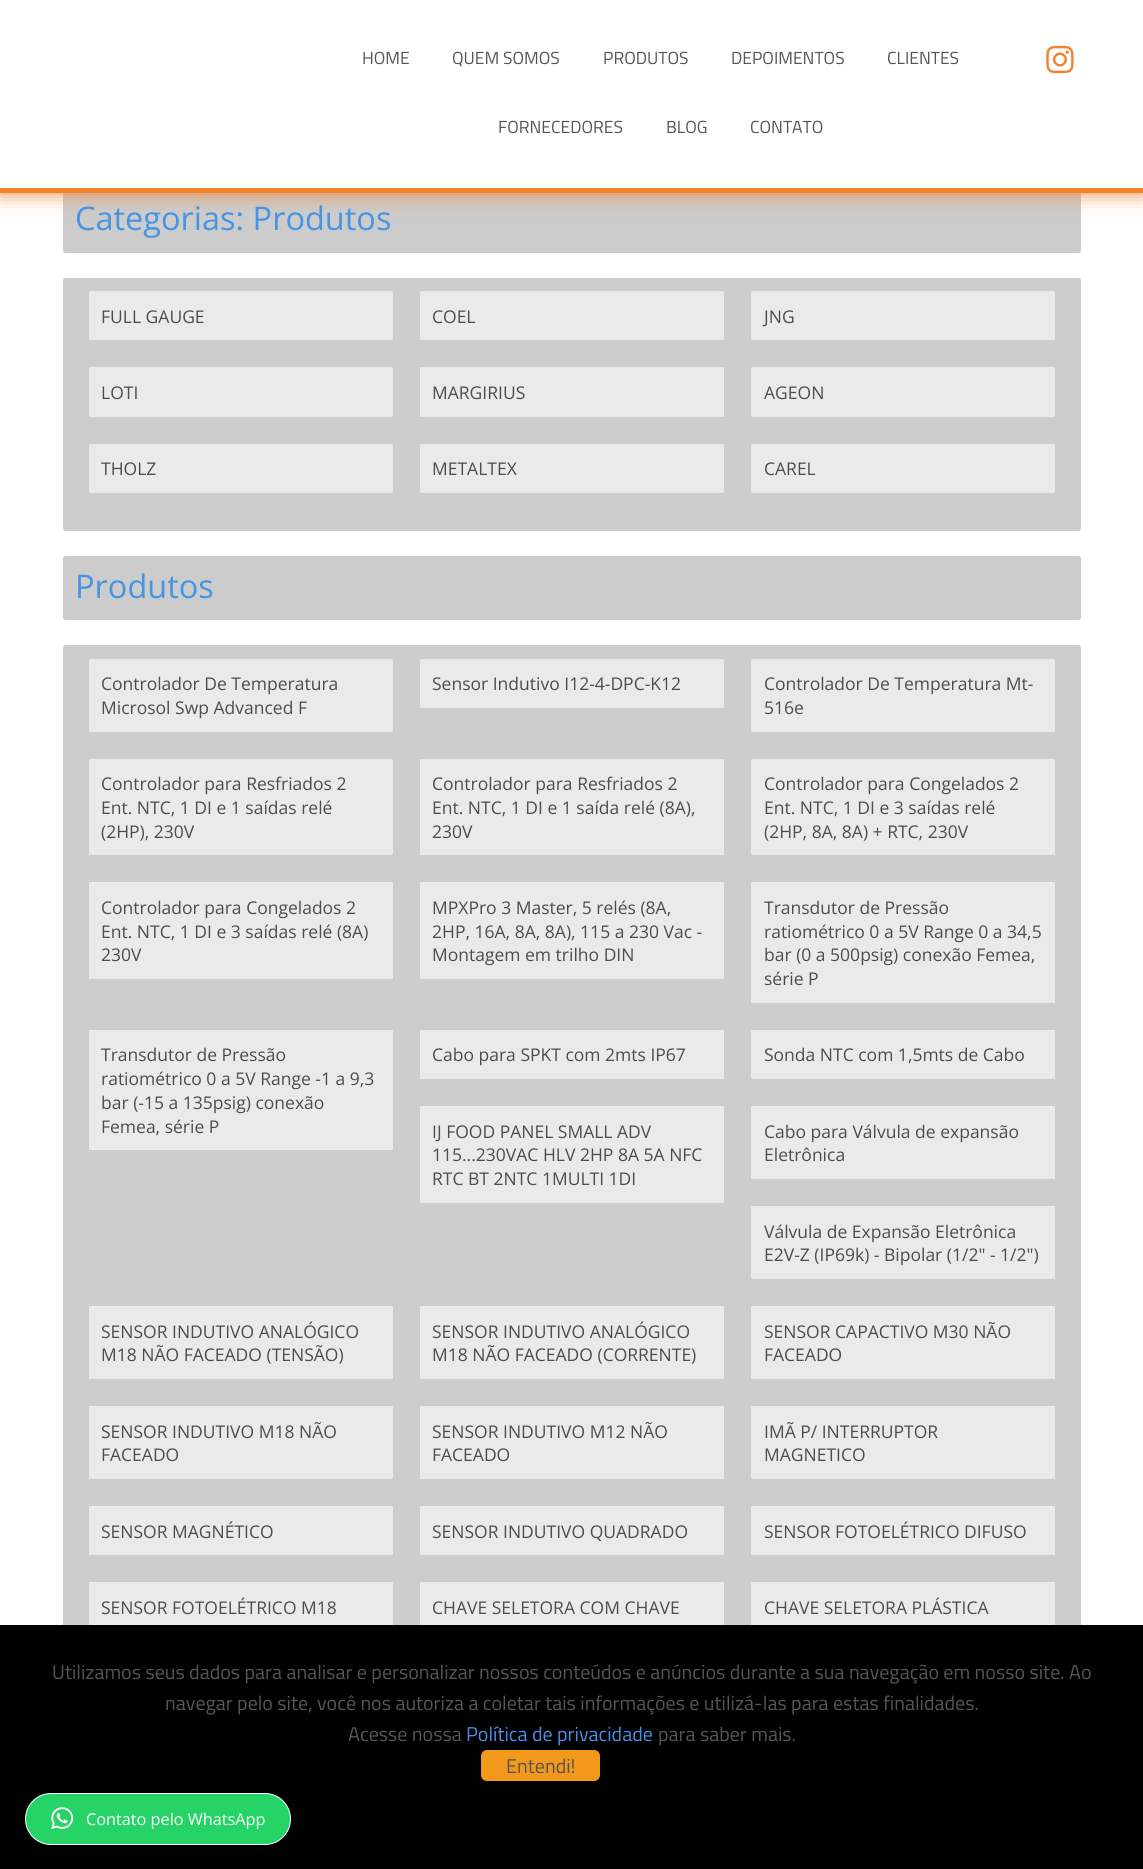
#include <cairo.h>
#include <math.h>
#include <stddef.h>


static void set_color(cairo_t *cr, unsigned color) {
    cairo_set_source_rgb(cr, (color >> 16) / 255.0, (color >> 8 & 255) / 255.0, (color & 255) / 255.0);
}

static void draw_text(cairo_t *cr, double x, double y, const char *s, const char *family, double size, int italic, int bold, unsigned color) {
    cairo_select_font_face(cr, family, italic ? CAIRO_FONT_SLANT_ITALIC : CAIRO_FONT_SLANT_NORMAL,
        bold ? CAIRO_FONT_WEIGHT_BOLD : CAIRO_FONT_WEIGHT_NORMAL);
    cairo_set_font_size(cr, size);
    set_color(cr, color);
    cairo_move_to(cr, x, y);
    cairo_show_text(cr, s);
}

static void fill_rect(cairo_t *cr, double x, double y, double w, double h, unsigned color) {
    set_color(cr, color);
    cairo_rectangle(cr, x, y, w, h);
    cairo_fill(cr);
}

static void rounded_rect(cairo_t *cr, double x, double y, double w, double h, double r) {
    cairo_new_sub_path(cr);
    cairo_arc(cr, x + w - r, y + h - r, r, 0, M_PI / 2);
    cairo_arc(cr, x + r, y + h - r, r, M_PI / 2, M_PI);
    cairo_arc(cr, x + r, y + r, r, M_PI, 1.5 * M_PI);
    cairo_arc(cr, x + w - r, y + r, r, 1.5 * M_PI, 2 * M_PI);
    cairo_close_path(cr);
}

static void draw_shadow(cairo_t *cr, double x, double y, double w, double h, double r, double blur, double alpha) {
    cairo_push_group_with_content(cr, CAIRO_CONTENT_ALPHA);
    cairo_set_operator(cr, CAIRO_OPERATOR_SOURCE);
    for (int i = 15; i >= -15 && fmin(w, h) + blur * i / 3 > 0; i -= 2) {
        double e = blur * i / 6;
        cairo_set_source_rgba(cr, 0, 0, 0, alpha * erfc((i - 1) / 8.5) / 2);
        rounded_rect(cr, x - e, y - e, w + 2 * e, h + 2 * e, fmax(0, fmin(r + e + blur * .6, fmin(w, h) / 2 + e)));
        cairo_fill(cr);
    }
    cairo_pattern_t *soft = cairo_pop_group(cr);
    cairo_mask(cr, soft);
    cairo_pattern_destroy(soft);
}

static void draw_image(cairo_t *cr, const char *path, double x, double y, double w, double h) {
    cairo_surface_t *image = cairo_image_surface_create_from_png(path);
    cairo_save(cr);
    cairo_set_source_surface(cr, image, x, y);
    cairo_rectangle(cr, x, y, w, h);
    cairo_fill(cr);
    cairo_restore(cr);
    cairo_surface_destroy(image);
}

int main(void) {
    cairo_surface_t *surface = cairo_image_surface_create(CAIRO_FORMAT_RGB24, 1143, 1869);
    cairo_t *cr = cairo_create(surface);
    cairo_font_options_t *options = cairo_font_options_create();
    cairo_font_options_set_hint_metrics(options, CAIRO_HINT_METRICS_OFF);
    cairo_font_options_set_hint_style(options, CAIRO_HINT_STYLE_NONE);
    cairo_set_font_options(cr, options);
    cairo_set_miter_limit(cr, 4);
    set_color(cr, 0xFFFFFF);
    cairo_paint(cr);
    set_color(cr, 0xCCCCCC);
    rounded_rect(cr, 63, 189, 1018, 64, 2.5);
    cairo_fill(cr);
    set_color(cr, 0xF38231);
    draw_shadow(cr, 0, 0, 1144, 193, 0, 10, 1);
    fill_rect(cr, 0, 0, 1143, 188, 0xFFFFFF);
    fill_rect(cr, 0, 188, 1143, 5, 0xF38231);
    draw_text(cr, 362, 64, "HOME", "Titillium Web", 17.5, 0, 0, 0x555555);
    draw_text(cr, 452, 64, "QUEM SOMOS", "Titillium Web", 17.5, 0, 0, 0x555555);
    draw_text(cr, 603, 64, "PRODUTOS", "Titillium Web", 17.5, 0, 0, 0x555555);
    draw_text(cr, 731, 64, "DEPOIMENTOS", "Titillium Web", 17.5, 0, 0, 0x555555);
    draw_text(cr, 887, 64, "CLIENTES", "Titillium Web", 17.5, 0, 0, 0x555555);
    draw_text(cr, 498, 133, "FORNECEDORES", "Titillium Web", 17.5, 0, 0, 0x555555);
    draw_text(cr, 666, 133, "BLOG", "Titillium Web", 17.5, 0, 0, 0x555555);
    draw_text(cr, 750, 133, "CONTATO", "Titillium Web", 17.5, 0, 0, 0x555555);
    draw_image(cr, "assets/img1.png", 1046, 45, 28, 29);
    draw_text(cr, 75, 230, "Categorias: Produtos", "Open Sans", 32.5, 0, 0, 0x4694E2);
    set_color(cr, 0xCDCDCD);
    rounded_rect(cr, 63, 278, 1018, 253, 2.5);
    cairo_fill(cr);
    set_color(cr, 0xEAEAEA);
    rounded_rect(cr, 88.5, 290.5, 305, 50, 2);
    cairo_fill_preserve(cr);
    set_color(cr, 0xCCCCCC);
    cairo_set_line_width(cr, 1);
    cairo_stroke(cr);
    draw_text(cr, 101, 323, "FULL GAUGE", "Open Sans", 17.5, 0, 0, 0x4D4D4D);
    set_color(cr, 0xEAEAEA);
    rounded_rect(cr, 419.5, 290.5, 305, 50, 2);
    cairo_fill_preserve(cr);
    set_color(cr, 0xCCCCCC);
    cairo_stroke(cr);
    draw_text(cr, 432, 323, "COEL", "Open Sans", 17.5, 0, 0, 0x4D4D4D);
    set_color(cr, 0xEAEAEA);
    rounded_rect(cr, 750.5, 290.5, 305, 50, 2);
    cairo_fill_preserve(cr);
    set_color(cr, 0xCCCCCC);
    cairo_stroke(cr);
    draw_text(cr, 764, 323, "JNG", "Open Sans", 17.5, 0, 0, 0x4D4D4D);
    set_color(cr, 0xEAEAEA);
    rounded_rect(cr, 88.5, 366.5, 305, 51, 2);
    cairo_fill_preserve(cr);
    set_color(cr, 0xCCCCCC);
    cairo_stroke(cr);
    draw_text(cr, 101, 399, "LOTI", "Open Sans", 17.5, 0, 0, 0x4D4D4D);
    set_color(cr, 0xEAEAEA);
    rounded_rect(cr, 419.5, 366.5, 305, 51, 2);
    cairo_fill_preserve(cr);
    set_color(cr, 0xCCCCCC);
    cairo_stroke(cr);
    draw_text(cr, 432, 399, "MARGIRIUS", "Open Sans", 17.5, 0, 0, 0x4D4D4D);
    set_color(cr, 0xEAEAEA);
    rounded_rect(cr, 750.5, 366.5, 305, 51, 2);
    cairo_fill_preserve(cr);
    set_color(cr, 0xCCCCCC);
    cairo_stroke(cr);
    draw_text(cr, 764, 399, "AGEON", "Open Sans", 17.5, 0, 0, 0x4D4D4D);
    set_color(cr, 0xEAEAEA);
    rounded_rect(cr, 88.5, 443.5, 305, 50, 2);
    cairo_fill_preserve(cr);
    set_color(cr, 0xCCCCCC);
    cairo_stroke(cr);
    draw_text(cr, 101, 475, "THOLZ", "Open Sans", 17.5, 0, 0, 0x4D4D4D);
    set_color(cr, 0xEAEAEA);
    rounded_rect(cr, 419.5, 443.5, 305, 50, 2);
    cairo_fill_preserve(cr);
    set_color(cr, 0xCCCCCC);
    cairo_stroke(cr);
    draw_text(cr, 432, 475, "METALTEX", "Open Sans", 17.5, 0, 0, 0x4D4D4D);
    set_color(cr, 0xEAEAEA);
    rounded_rect(cr, 750.5, 443.5, 305, 50, 2);
    cairo_fill_preserve(cr);
    set_color(cr, 0xCCCCCC);
    cairo_stroke(cr);
    draw_text(cr, 764, 475, "CAREL", "Open Sans", 17.5, 0, 0, 0x4D4D4D);
    set_color(cr, 0xCCCCCC);
    rounded_rect(cr, 63, 556, 1018, 64, 2.5);
    cairo_fill(cr);
    draw_text(cr, 75, 598, "Produtos", "Open Sans", 32.5, 0, 0, 0x4694E2);
    set_color(cr, 0xCDCDCD);
    rounded_rect(cr, 63, 645, 1018, 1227, 2.5);
    cairo_fill(cr);
    set_color(cr, 0xEAEAEA);
    rounded_rect(cr, 88.5, 658.5, 305, 74, 2);
    cairo_fill_preserve(cr);
    set_color(cr, 0xCCCCCC);
    cairo_stroke(cr);
    draw_text(cr, 101, 690, "Controlador De Temperatura", "Open Sans", 17.5, 0, 0, 0x4D4D4D);
    draw_text(cr, 101, 714, "Microsol Swp Advanced F", "Open Sans", 17.5, 0, 0, 0x4D4D4D);
    set_color(cr, 0xEAEAEA);
    rounded_rect(cr, 419.5, 658.5, 305, 50, 2);
    cairo_fill_preserve(cr);
    set_color(cr, 0xCCCCCC);
    cairo_stroke(cr);
    draw_text(cr, 432, 690, "Sensor Indutivo I12-4-DPC-K12", "Open Sans", 17.5, 0, 0, 0x4D4D4D);
    set_color(cr, 0xEAEAEA);
    rounded_rect(cr, 750.5, 658.5, 305, 74, 2);
    cairo_fill_preserve(cr);
    set_color(cr, 0xCCCCCC);
    cairo_stroke(cr);
    draw_text(cr, 764, 690, "Controlador De Temperatura Mt-", "Open Sans", 17.5, 0, 0, 0x4D4D4D);
    draw_text(cr, 764, 714, "516e", "Open Sans", 17.5, 0, 0, 0x4D4D4D);
    set_color(cr, 0xEAEAEA);
    rounded_rect(cr, 88.5, 758.5, 305, 97, 2);
    cairo_fill_preserve(cr);
    set_color(cr, 0xCCCCCC);
    cairo_stroke(cr);
    draw_text(cr, 101, 790, "Controlador para Resfriados 2", "Open Sans", 17.5, 0, 0, 0x4D4D4D);
    draw_text(cr, 101, 814, "Ent. NTC, 1 DI e 1 saídas relé", "Open Sans", 17.5, 0, 0, 0x4D4D4D);
    draw_text(cr, 101, 838, "(2HP), 230V", "Open Sans", 17.5, 0, 0, 0x4D4D4D);
    set_color(cr, 0xEAEAEA);
    rounded_rect(cr, 419.5, 758.5, 305, 97, 2);
    cairo_fill_preserve(cr);
    set_color(cr, 0xCCCCCC);
    cairo_stroke(cr);
    draw_text(cr, 432, 790, "Controlador para Resfriados 2", "Open Sans", 17.5, 0, 0, 0x4D4D4D);
    draw_text(cr, 432, 814, "Ent. NTC, 1 DI e 1 saída relé (8A),", "Open Sans", 17.5, 0, 0, 0x4D4D4D);
    draw_text(cr, 432, 838, "230V", "Open Sans", 17.5, 0, 0, 0x4D4D4D);
    set_color(cr, 0xEAEAEA);
    rounded_rect(cr, 750.5, 758.5, 305, 97, 2);
    cairo_fill_preserve(cr);
    set_color(cr, 0xCCCCCC);
    cairo_stroke(cr);
    draw_text(cr, 764, 790, "Controlador para Congelados 2", "Open Sans", 17.5, 0, 0, 0x4D4D4D);
    draw_text(cr, 764, 814, "Ent. NTC, 1 DI e 3 saídas relé", "Open Sans", 17.5, 0, 0, 0x4D4D4D);
    draw_text(cr, 764, 838, "(2HP, 8A, 8A) + RTC, 230V", "Open Sans", 17.5, 0, 0, 0x4D4D4D);
    set_color(cr, 0xEAEAEA);
    rounded_rect(cr, 88.5, 881.5, 305, 98, 2);
    cairo_fill_preserve(cr);
    set_color(cr, 0xCCCCCC);
    cairo_stroke(cr);
    draw_text(cr, 101, 914, "Controlador para Congelados 2", "Open Sans", 17.5, 0, 0, 0x4D4D4D);
    draw_text(cr, 101, 938, "Ent. NTC, 1 DI e 3 saídas relé (8A)", "Open Sans", 17.5, 0, 0, 0x4D4D4D);
    draw_text(cr, 101, 961, "230V", "Open Sans", 17.5, 0, 0, 0x4D4D4D);
    set_color(cr, 0xEAEAEA);
    rounded_rect(cr, 419.5, 881.5, 305, 98, 2);
    cairo_fill_preserve(cr);
    set_color(cr, 0xCCCCCC);
    cairo_stroke(cr);
    draw_text(cr, 432, 914, "MPXPro 3 Master, 5 relés (8A,", "Open Sans", 17.5, 0, 0, 0x4D4D4D);
    draw_text(cr, 432, 938, "2HP, 16A, 8A, 8A), 115 a 230 Vac -", "Open Sans", 17.5, 0, 0, 0x4D4D4D);
    draw_text(cr, 432, 961, "Montagem em trilho DIN", "Open Sans", 17.5, 0, 0, 0x4D4D4D);
    set_color(cr, 0xEAEAEA);
    rounded_rect(cr, 750.5, 881.5, 305, 122, 2);
    cairo_fill_preserve(cr);
    set_color(cr, 0xCCCCCC);
    cairo_stroke(cr);
    draw_text(cr, 764, 914, "Transdutor de Pressão", "Open Sans", 17.5, 0, 0, 0x4D4D4D);
    draw_text(cr, 764, 938, "ratiométrico 0 a 5V Range 0 a 34,5", "Open Sans", 17.5, 0, 0, 0x4D4D4D);
    draw_text(cr, 764, 961, "bar (0 a 500psig) conexão Femea,", "Open Sans", 17.5, 0, 0, 0x4D4D4D);
    draw_text(cr, 764, 985, "série P", "Open Sans", 17.5, 0, 0, 0x4D4D4D);
    set_color(cr, 0xEAEAEA);
    rounded_rect(cr, 88.5, 1029.5, 305, 121, 2);
    cairo_fill_preserve(cr);
    set_color(cr, 0xCCCCCC);
    cairo_stroke(cr);
    draw_text(cr, 101, 1061, "Transdutor de Pressão", "Open Sans", 17.5, 0, 0, 0x4D4D4D);
    draw_text(cr, 101, 1085, "ratiométrico 0 a 5V Range -1 a 9,3", "Open Sans", 17.5, 0, 0, 0x4D4D4D);
    draw_text(cr, 101, 1109, "bar (-15 a 135psig) conexão", "Open Sans", 17.5, 0, 0, 0x4D4D4D);
    draw_text(cr, 101, 1133, "Femea, série P", "Open Sans", 17.5, 0, 0, 0x4D4D4D);
    set_color(cr, 0xEAEAEA);
    rounded_rect(cr, 419.5, 1029.5, 305, 50, 2);
    cairo_fill_preserve(cr);
    set_color(cr, 0xCCCCCC);
    cairo_stroke(cr);
    draw_text(cr, 432, 1061, "Cabo para SPKT com 2mts IP67", "Open Sans", 17.5, 0, 0, 0x4D4D4D);
    set_color(cr, 0xEAEAEA);
    rounded_rect(cr, 750.5, 1029.5, 305, 50, 2);
    cairo_fill_preserve(cr);
    set_color(cr, 0xCCCCCC);
    cairo_stroke(cr);
    draw_text(cr, 764, 1061, "Sonda NTC com 1,5mts de Cabo", "Open Sans", 17.5, 0, 0, 0x4D4D4D);
    set_color(cr, 0xEAEAEA);
    rounded_rect(cr, 419.5, 1105.5, 305, 98, 2);
    cairo_fill_preserve(cr);
    set_color(cr, 0xCCCCCC);
    cairo_stroke(cr);
    draw_text(cr, 432, 1138, "IJ FOOD PANEL SMALL ADV", "Open Sans", 17.5, 0, 0, 0x4D4D4D);
    draw_text(cr, 432, 1161, "115...230VAC HLV 2HP 8A 5A NFC", "Open Sans", 17.5, 0, 0, 0x4D4D4D);
    draw_text(cr, 432, 1185, "RTC BT 2NTC 1MULTI 1DI", "Open Sans", 17.5, 0, 0, 0x4D4D4D);
    set_color(cr, 0xEAEAEA);
    rounded_rect(cr, 750.5, 1105.5, 305, 74, 2);
    cairo_fill_preserve(cr);
    set_color(cr, 0xCCCCCC);
    cairo_stroke(cr);
    draw_text(cr, 764, 1138, "Cabo para Válvula de expansão", "Open Sans", 17.5, 0, 0, 0x4D4D4D);
    draw_text(cr, 764, 1161, "Eletrônica", "Open Sans", 17.5, 0, 0, 0x4D4D4D);
    set_color(cr, 0xEAEAEA);
    rounded_rect(cr, 750.5, 1205.5, 305, 74, 2);
    cairo_fill_preserve(cr);
    set_color(cr, 0xCCCCCC);
    cairo_stroke(cr);
    draw_text(cr, 764, 1238, "Válvula de Expansão Eletrônica", "Open Sans", 17.5, 0, 0, 0x4D4D4D);
    draw_text(cr, 764, 1261, "E2V-Z (IP69k) - Bipolar (1/2\" - 1/2\")", "Open Sans", 17.5, 0, 0, 0x4D4D4D);
    set_color(cr, 0xEAEAEA);
    rounded_rect(cr, 88.5, 1305.5, 305, 74, 2);
    cairo_fill_preserve(cr);
    set_color(cr, 0xCCCCCC);
    cairo_stroke(cr);
    draw_text(cr, 101, 1338, "SENSOR INDUTIVO ANALÓGICO", "Open Sans", 17.5, 0, 0, 0x4D4D4D);
    draw_text(cr, 101, 1361, "M18 NÃO FACEADO (TENSÃO)", "Open Sans", 17.5, 0, 0, 0x4D4D4D);
    set_color(cr, 0xEAEAEA);
    rounded_rect(cr, 419.5, 1305.5, 305, 74, 2);
    cairo_fill_preserve(cr);
    set_color(cr, 0xCCCCCC);
    cairo_stroke(cr);
    draw_text(cr, 432, 1338, "SENSOR INDUTIVO ANALÓGICO", "Open Sans", 17.5, 0, 0, 0x4D4D4D);
    draw_text(cr, 432, 1361, "M18 NÃO FACEADO (CORRENTE)", "Open Sans", 17.5, 0, 0, 0x4D4D4D);
    set_color(cr, 0xEAEAEA);
    rounded_rect(cr, 750.5, 1305.5, 305, 74, 2);
    cairo_fill_preserve(cr);
    set_color(cr, 0xCCCCCC);
    cairo_stroke(cr);
    draw_text(cr, 764, 1338, "SENSOR CAPACTIVO M30 NÃO", "Open Sans", 17.5, 0, 0, 0x4D4D4D);
    draw_text(cr, 764, 1361, "FACEADO", "Open Sans", 17.5, 0, 0, 0x4D4D4D);
    set_color(cr, 0xEAEAEA);
    rounded_rect(cr, 88.5, 1405.5, 305, 74, 2);
    cairo_fill_preserve(cr);
    set_color(cr, 0xCCCCCC);
    cairo_stroke(cr);
    draw_text(cr, 101, 1438, "SENSOR INDUTIVO M18 NÃO", "Open Sans", 17.5, 0, 0, 0x4D4D4D);
    draw_text(cr, 101, 1461, "FACEADO", "Open Sans", 17.5, 0, 0, 0x4D4D4D);
    set_color(cr, 0xEAEAEA);
    rounded_rect(cr, 419.5, 1405.5, 305, 74, 2);
    cairo_fill_preserve(cr);
    set_color(cr, 0xCCCCCC);
    cairo_stroke(cr);
    draw_text(cr, 432, 1438, "SENSOR INDUTIVO M12 NÃO", "Open Sans", 17.5, 0, 0, 0x4D4D4D);
    draw_text(cr, 432, 1461, "FACEADO", "Open Sans", 17.5, 0, 0, 0x4D4D4D);
    set_color(cr, 0xEAEAEA);
    rounded_rect(cr, 750.5, 1405.5, 305, 74, 2);
    cairo_fill_preserve(cr);
    set_color(cr, 0xCCCCCC);
    cairo_stroke(cr);
    draw_text(cr, 764, 1438, "IMÃ P/ INTERRUPTOR", "Open Sans", 17.5, 0, 0, 0x4D4D4D);
    draw_text(cr, 764, 1461, "MAGNETICO", "Open Sans", 17.5, 0, 0, 0x4D4D4D);
    set_color(cr, 0xEAEAEA);
    rounded_rect(cr, 88.5, 1505.5, 305, 50, 2);
    cairo_fill_preserve(cr);
    set_color(cr, 0xCCCCCC);
    cairo_stroke(cr);
    draw_text(cr, 101, 1538, "SENSOR MAGNÉTICO", "Open Sans", 17.5, 0, 0, 0x4D4D4D);
    set_color(cr, 0xEAEAEA);
    rounded_rect(cr, 419.5, 1505.5, 305, 50, 2);
    cairo_fill_preserve(cr);
    set_color(cr, 0xCCCCCC);
    cairo_stroke(cr);
    draw_text(cr, 432, 1538, "SENSOR INDUTIVO QUADRADO", "Open Sans", 17.5, 0, 0, 0x4D4D4D);
    set_color(cr, 0xEAEAEA);
    rounded_rect(cr, 750.5, 1505.5, 305, 50, 2);
    cairo_fill_preserve(cr);
    set_color(cr, 0xCCCCCC);
    cairo_stroke(cr);
    draw_text(cr, 764, 1538, "SENSOR FOTOELÉTRICO DIFUSO", "Open Sans", 17.5, 0, 0, 0x4D4D4D);
    set_color(cr, 0xEAEAEA);
    rounded_rect(cr, 88.5, 1581.5, 305, 74, 2);
    cairo_fill_preserve(cr);
    set_color(cr, 0xCCCCCC);
    cairo_stroke(cr);
    draw_text(cr, 101, 1614, "SENSOR FOTOELÉTRICO M18", "Open Sans", 17.5, 0, 0, 0x4D4D4D);
    set_color(cr, 0xEAEAEA);
    rounded_rect(cr, 419.5, 1581.5, 305, 74, 2);
    cairo_fill_preserve(cr);
    set_color(cr, 0xCCCCCC);
    cairo_stroke(cr);
    draw_text(cr, 432, 1614, "CHAVE SELETORA COM CHAVE", "Open Sans", 17.5, 0, 0, 0x4D4D4D);
    set_color(cr, 0xEAEAEA);
    rounded_rect(cr, 750.5, 1581.5, 305, 51, 2);
    cairo_fill_preserve(cr);
    set_color(cr, 0xCCCCCC);
    cairo_stroke(cr);
    draw_text(cr, 764, 1614, "CHAVE SELETORA PLÁSTICA", "Open Sans", 17.5, 0, 0, 0x4D4D4D);
    fill_rect(cr, 0, 1625, 1143, 244, 0x000000);
    draw_text(cr, 52, 1679, "Utilizamos seus dados para analisar e personalizar nossos conteúdos e anúncios durante a sua navegação em nosso site. Ao", "Titillium Web", 20, 0, 0, 0x555555);
    draw_text(cr, 165, 1710, "navegar pelo site, você nos autoriza a coletar tais informações e utilizá-las para estas finalidades.", "Titillium Web", 20, 0, 0, 0x555555);
    draw_text(cr, 348, 1741, "Acesse nossa", "Titillium Web", 20, 0, 0, 0x555555);
    draw_text(cr, 466, 1741, "Política de privacidade", "Titillium Web", 20, 0, 0, 0x4B8EE7);
    draw_text(cr, 658, 1741, "para saber mais.", "Titillium Web", 20, 0, 0, 0x555555);
    set_color(cr, 0xF2991C);
    rounded_rect(cr, 481, 1750, 119, 31, 6);
    cairo_fill(cr);
    draw_text(cr, 506, 1773, "Entendi!", "Titillium Web", 20, 0, 0, 0x555555);
    set_color(cr, 0x25D366);
    rounded_rect(cr, 25.5, 1793.5, 265, 51, 25.5);
    cairo_fill_preserve(cr);
    set_color(cr, 0xFFFFFF);
    cairo_stroke(cr);
    draw_image(cr, "assets/img2.png", 51, 1807, 23, 22);
    draw_text(cr, 86, 1825, "Contato pelo WhatsApp", "Open Sans", 16.25, 0, 0, 0xFFFFFF);
    cairo_surface_write_to_png(surface, "output.png");
    cairo_font_options_destroy(options);
    cairo_destroy(cr);
    cairo_surface_destroy(surface);
    return 0;
}
